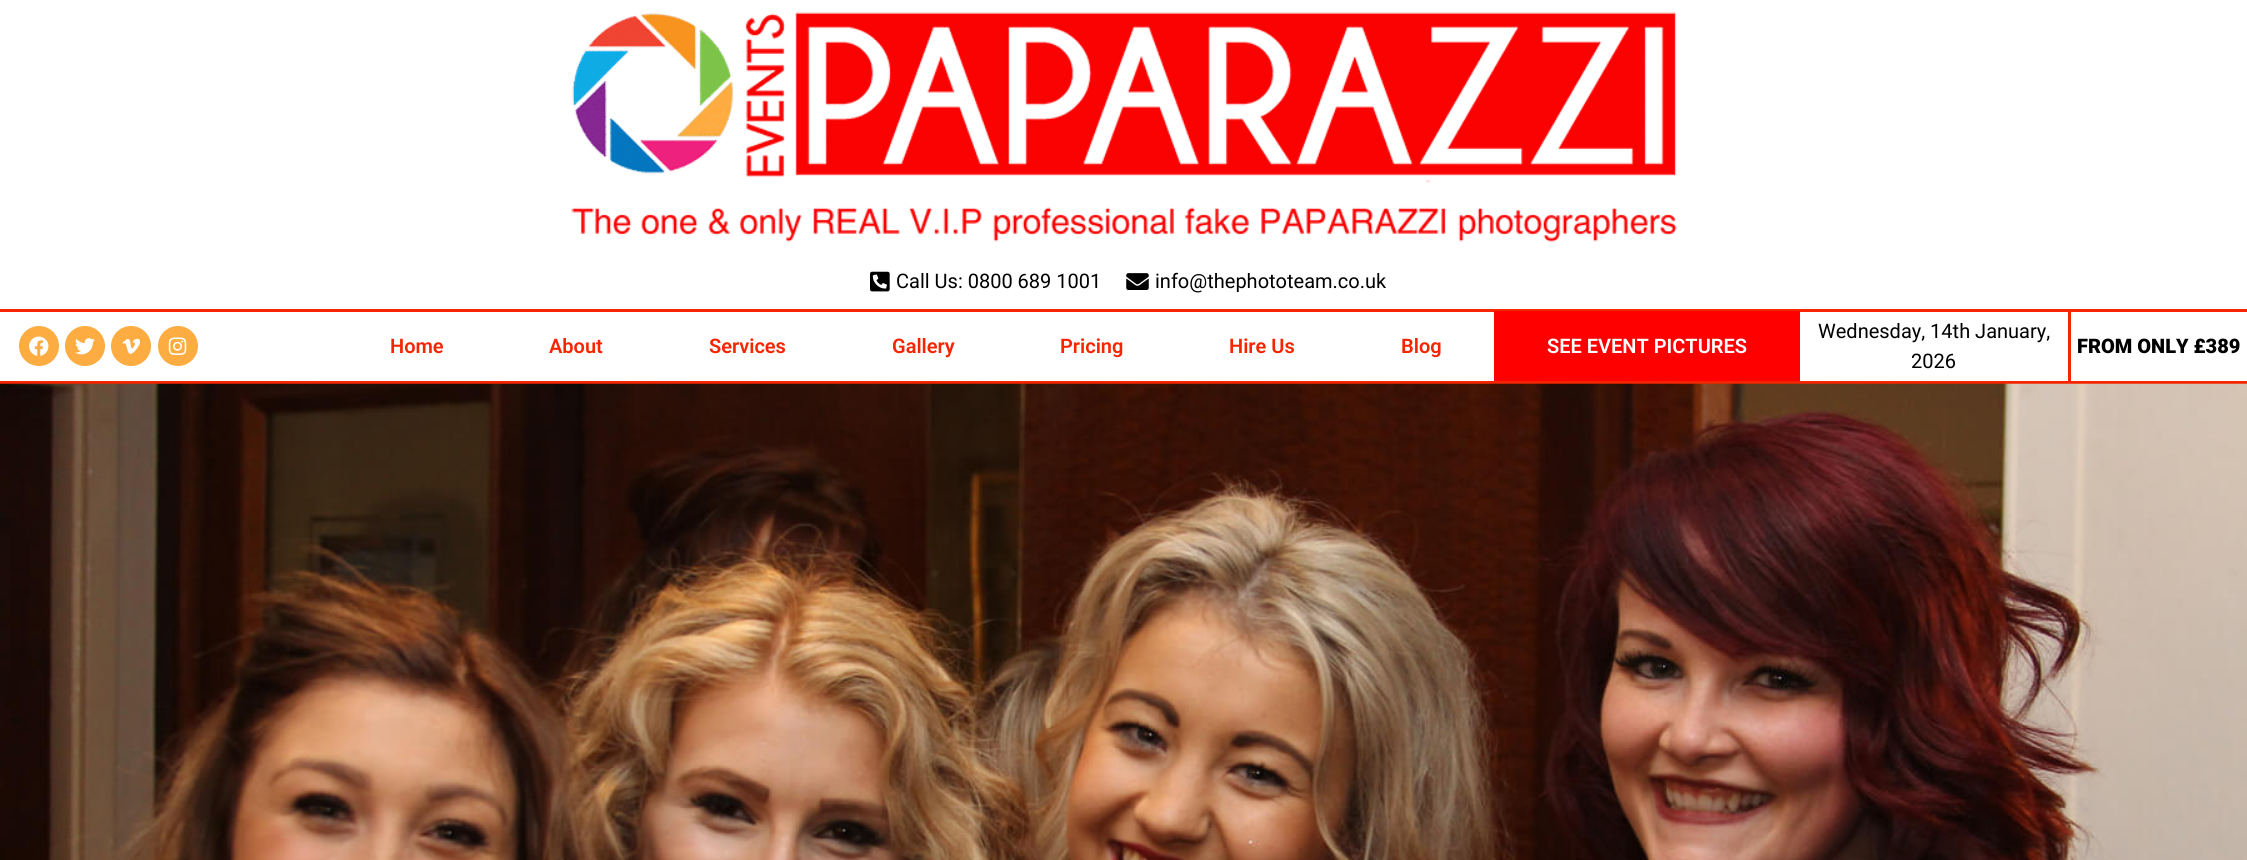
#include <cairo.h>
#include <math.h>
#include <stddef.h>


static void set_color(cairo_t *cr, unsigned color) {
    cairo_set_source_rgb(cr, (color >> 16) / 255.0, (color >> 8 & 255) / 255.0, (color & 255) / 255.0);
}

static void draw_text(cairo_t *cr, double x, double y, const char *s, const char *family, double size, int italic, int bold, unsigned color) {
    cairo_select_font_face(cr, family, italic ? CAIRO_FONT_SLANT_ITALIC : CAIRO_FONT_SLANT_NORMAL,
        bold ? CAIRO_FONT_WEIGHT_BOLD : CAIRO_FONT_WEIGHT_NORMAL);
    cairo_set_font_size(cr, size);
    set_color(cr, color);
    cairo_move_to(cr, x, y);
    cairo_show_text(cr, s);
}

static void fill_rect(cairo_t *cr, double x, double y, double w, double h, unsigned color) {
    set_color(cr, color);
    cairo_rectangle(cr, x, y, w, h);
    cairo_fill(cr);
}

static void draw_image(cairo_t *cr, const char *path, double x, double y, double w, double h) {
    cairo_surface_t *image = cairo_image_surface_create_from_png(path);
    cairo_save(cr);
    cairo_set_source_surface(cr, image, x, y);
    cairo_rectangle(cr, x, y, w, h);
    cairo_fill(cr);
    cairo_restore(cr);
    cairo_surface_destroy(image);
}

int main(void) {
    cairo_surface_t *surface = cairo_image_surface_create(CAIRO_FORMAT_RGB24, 2247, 860);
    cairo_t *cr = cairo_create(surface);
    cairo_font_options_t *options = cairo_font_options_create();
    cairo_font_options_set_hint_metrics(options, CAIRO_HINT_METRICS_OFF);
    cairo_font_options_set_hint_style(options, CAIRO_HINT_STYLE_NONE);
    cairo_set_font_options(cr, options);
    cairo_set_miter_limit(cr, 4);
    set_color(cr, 0xFFFFFF);
    cairo_paint(cr);
    draw_image(cr, "assets/img1.png", 571, 12, 1107, 230);
    draw_image(cr, "assets/img2.png", 870, 271, 20, 21);
    draw_text(cr, 896, 288, "Call Us: 0800 689 1001", "Roboto", 20, 0, 0, 0x000000);
    draw_image(cr, "assets/img3.png", 1126, 273, 23, 17);
    draw_text(cr, 1155, 288, "info@thephototeam.co.uk", "Roboto", 20, 0, 0, 0x000000);
    fill_rect(cr, 0, 309, 2247, 3, 0xF52500);
    fill_rect(cr, 0, 381, 2247, 3, 0xF52500);
    set_color(cr, 0xFCAC41);
    cairo_new_path(cr);
    cairo_arc(cr, 39, 346, 18.5, 0, 2 * M_PI);
    cairo_fill_preserve(cr);
    cairo_set_line_width(cr, 3);
    cairo_stroke(cr);
    draw_image(cr, "assets/img4.png", 29, 336, 20, 20);
    cairo_arc(cr, 85, 346, 18.5, 0, 2 * M_PI);
    cairo_fill_preserve(cr);
    cairo_stroke(cr);
    draw_image(cr, "assets/img5.png", 75, 338, 20, 17);
    cairo_arc(cr, 131, 346, 18.5, 0, 2 * M_PI);
    cairo_fill_preserve(cr);
    cairo_stroke(cr);
    draw_image(cr, "assets/img6.png", 122, 338, 18, 16);
    cairo_arc(cr, 178, 346, 18.5, 0, 2 * M_PI);
    cairo_fill_preserve(cr);
    cairo_stroke(cr);
    draw_image(cr, "assets/img7.png", 168, 337, 19, 18);
    draw_text(cr, 390, 353, "Home", "Roboto SemiBold", 20, 0, 0, 0xF52500);
    draw_text(cr, 549, 353, "About", "Roboto SemiBold", 20, 0, 0, 0xF52500);
    draw_text(cr, 709, 353, "Services", "Roboto SemiBold", 20, 0, 0, 0xF52500);
    draw_text(cr, 892, 353, "Gallery", "Roboto SemiBold", 20, 0, 0, 0xF52500);
    draw_text(cr, 1060, 353, "Pricing", "Roboto SemiBold", 20, 0, 0, 0xF52500);
    draw_text(cr, 1229, 353, "Hire Us", "Roboto SemiBold", 20, 0, 0, 0xF52500);
    draw_text(cr, 1401, 353, "Blog", "Roboto SemiBold", 20, 0, 0, 0xF52500);
    fill_rect(cr, 1494, 311, 306, 70, 0xFF0000);
    draw_text(cr, 1547, 353, "SEE EVENT PICTURES", "Roboto SemiBold", 20, 0, 0, 0xFFFFFF);
    fill_rect(cr, 2068, 311, 3, 70, 0xF52500);
    draw_text(cr, 1818, 338, "Wednesday, 14th January,", "Roboto", 20, 0, 0, 0x000000);
    draw_text(cr, 1911, 368, "2026", "Roboto", 20, 0, 0, 0x000000);
    draw_text(cr, 2077, 353, "FROM ONLY £389", "Roboto Black", 20, 0, 0, 0x000000);
    draw_image(cr, "assets/img8.png", 0, 383, 2247, 477);
    cairo_surface_write_to_png(surface, "output.png");
    cairo_font_options_destroy(options);
    cairo_destroy(cr);
    cairo_surface_destroy(surface);
    return 0;
}
